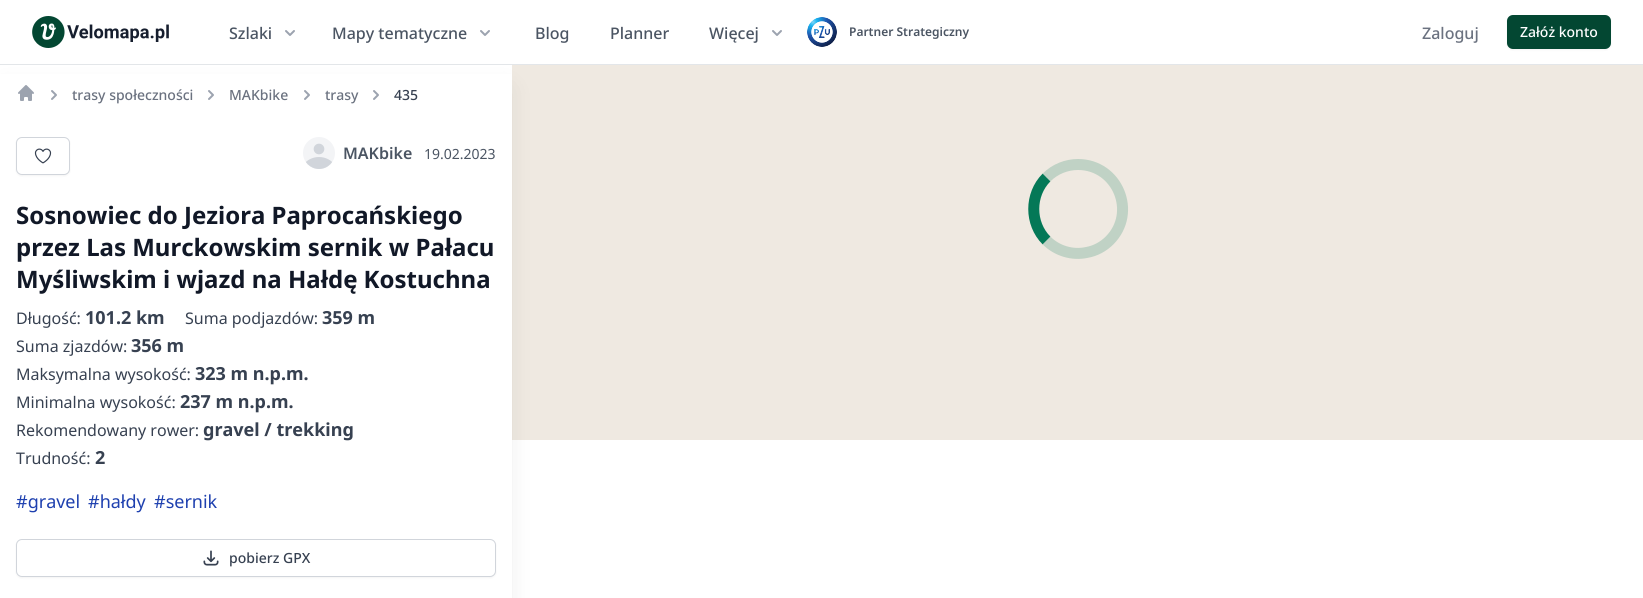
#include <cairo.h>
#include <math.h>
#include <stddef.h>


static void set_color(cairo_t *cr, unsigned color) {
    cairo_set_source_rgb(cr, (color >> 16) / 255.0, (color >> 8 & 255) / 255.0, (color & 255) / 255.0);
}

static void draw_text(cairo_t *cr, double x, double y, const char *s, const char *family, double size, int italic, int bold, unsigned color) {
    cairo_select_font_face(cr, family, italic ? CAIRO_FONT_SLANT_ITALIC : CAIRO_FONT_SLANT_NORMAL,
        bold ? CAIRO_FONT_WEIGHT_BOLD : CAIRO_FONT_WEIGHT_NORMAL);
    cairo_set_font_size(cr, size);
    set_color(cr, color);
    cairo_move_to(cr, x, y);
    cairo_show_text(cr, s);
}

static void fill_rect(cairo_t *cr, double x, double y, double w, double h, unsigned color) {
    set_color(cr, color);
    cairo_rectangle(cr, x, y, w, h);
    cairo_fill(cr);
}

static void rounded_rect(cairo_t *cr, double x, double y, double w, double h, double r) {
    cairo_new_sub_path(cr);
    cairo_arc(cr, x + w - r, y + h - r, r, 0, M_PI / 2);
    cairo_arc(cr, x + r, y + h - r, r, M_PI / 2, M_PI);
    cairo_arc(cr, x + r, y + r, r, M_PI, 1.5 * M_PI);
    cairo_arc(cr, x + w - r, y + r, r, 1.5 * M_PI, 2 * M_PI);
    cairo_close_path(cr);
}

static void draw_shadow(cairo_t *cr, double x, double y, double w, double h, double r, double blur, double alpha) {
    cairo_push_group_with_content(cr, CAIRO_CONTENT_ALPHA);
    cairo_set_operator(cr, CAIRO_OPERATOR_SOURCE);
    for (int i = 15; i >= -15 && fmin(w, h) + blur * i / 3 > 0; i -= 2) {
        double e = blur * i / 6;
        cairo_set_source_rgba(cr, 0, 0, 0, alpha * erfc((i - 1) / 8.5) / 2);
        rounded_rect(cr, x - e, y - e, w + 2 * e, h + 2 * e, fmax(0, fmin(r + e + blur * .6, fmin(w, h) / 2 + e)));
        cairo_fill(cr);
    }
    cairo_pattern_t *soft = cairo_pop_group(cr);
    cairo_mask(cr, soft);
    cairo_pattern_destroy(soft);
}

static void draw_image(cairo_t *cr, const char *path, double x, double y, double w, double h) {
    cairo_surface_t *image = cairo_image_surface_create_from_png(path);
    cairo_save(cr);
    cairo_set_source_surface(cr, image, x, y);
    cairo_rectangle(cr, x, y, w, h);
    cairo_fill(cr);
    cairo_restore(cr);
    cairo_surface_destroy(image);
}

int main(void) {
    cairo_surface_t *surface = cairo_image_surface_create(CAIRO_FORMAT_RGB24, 1643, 598);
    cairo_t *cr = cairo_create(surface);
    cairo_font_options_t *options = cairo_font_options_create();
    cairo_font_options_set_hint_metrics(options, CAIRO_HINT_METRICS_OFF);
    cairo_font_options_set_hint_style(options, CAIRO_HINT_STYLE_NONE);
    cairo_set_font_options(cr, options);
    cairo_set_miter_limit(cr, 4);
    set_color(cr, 0xFFFFFF);
    cairo_paint(cr);
    fill_rect(cr, 0, 64, 1643, 1, 0xE3E6E9);
    draw_image(cr, "assets/img1.png", 32, 16, 137, 32);
    draw_text(cr, 229, 39, "Szlaki", "Noto Sans Medium", 16, 0, 0, 0x4B5563);
    draw_image(cr, "assets/img2.png", 285, 30, 10, 6);
    draw_text(cr, 332, 39, "Mapy tematyczne", "Noto Sans Medium", 16, 0, 0, 0x4B5563);
    draw_image(cr, "assets/img2.png", 480, 30, 10, 6);
    draw_text(cr, 535, 39, "Blog", "Noto Sans Medium", 16, 0, 0, 0x4B5563);
    draw_text(cr, 610, 39, "Planner", "Noto Sans Medium", 16, 0, 0, 0x4B5563);
    draw_text(cr, 709, 39, "Więcej", "Noto Sans Medium", 16, 0, 0, 0x4B5563);
    draw_image(cr, "assets/img2.png", 772, 30, 10, 6);
    draw_image(cr, "assets/img3.png", 807, 17, 30, 30);
    draw_text(cr, 849, 36, "Partner Strategiczny", "Noto Sans SemiBold", 12, 0, 0, 0x4B5563);
    draw_text(cr, 1422, 39, "Zaloguj", "Noto Sans Medium", 16, 0, 0, 0x6B7280);
    set_color(cr, 0x000000);
    draw_shadow(cr, 1507, 16, 104, 34, 6, 1, 0.05);
    set_color(cr, 0x034732);
    rounded_rect(cr, 1507, 15, 104, 34, 6);
    cairo_fill(cr);
    draw_text(cr, 1520, 37, "Załóż konto", "Noto Sans Medium", 14, 0, 0, 0xFFFFFF);
    fill_rect(cr, 512, 65, 1131, 375, 0xEFE9E1);
    set_color(cr, 0x000000);
    draw_shadow(cr, 5, 90, 502, 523, 0, 12.5, 0.1);
    fill_rect(cr, 0, 74, 512, 524, 0xFFFFFF);
    draw_image(cr, "assets/img4.png", 18, 85, 16, 16);
    draw_image(cr, "assets/img5.png", 51, 90, 6, 10);
    draw_text(cr, 72, 100, "trasy społeczności", "Noto Sans Medium", 14, 0, 0, 0x6B7280);
    draw_image(cr, "assets/img5.png", 208, 90, 6, 10);
    draw_text(cr, 229, 100, "MAKbike", "Noto Sans Medium", 14, 0, 0, 0x6B7280);
    draw_image(cr, "assets/img5.png", 304, 90, 6, 10);
    draw_text(cr, 325, 100, "trasy", "Noto Sans Medium", 14, 0, 0, 0x6B7280);
    draw_image(cr, "assets/img5.png", 373, 90, 6, 10);
    draw_text(cr, 394, 100, "435", "Noto Sans Medium", 14, 0, 0, 0x374151);
    set_color(cr, 0x000000);
    draw_shadow(cr, 16, 138, 54, 38, 6, 1, 0.05);
    set_color(cr, 0xFFFFFF);
    rounded_rect(cr, 16.5, 137.5, 53, 37, 5.5);
    cairo_fill_preserve(cr);
    set_color(cr, 0xD1D5DB);
    cairo_set_line_width(cr, 1);
    cairo_stroke(cr);
    draw_image(cr, "assets/img6.png", 34, 148, 18, 16);
    set_color(cr, 0xF3F4F6);
    cairo_arc(cr, 319, 153, 16, 0, 2 * M_PI);
    cairo_fill(cr);
    draw_image(cr, "assets/img7.png", 306, 143, 26, 26);
    draw_text(cr, 343, 159, "MAKbike", "Noto Sans SemiBold", 16, 0, 0, 0x4B5563);
    draw_text(cr, 424, 159, "19.02.2023", "Noto Sans", 14, 0, 0, 0x4B5563);
    draw_text(cr, 16, 224, "Sosnowiec do Jeziora Paprocańskiego", "Noto Sans", 24, 0, 1, 0x111827);
    draw_text(cr, 16, 256, "przez Las Murckowskim sernik w Pałacu", "Noto Sans", 24, 0, 1, 0x111827);
    draw_text(cr, 16, 288, "Myśliwskim i wjazd na Hałdę Kostuchna", "Noto Sans", 24, 0, 1, 0x111827);
    draw_text(cr, 16, 324, "Długość:", "Noto Sans", 16, 0, 0, 0x374151);
    draw_text(cr, 85, 324, "101.2 km", "Noto Sans", 18, 0, 1, 0x374151);
    draw_text(cr, 185, 324, "Suma podjazdów:", "Noto Sans", 16, 0, 0, 0x374151);
    draw_text(cr, 322, 324, "359 m", "Noto Sans", 18, 0, 1, 0x374151);
    draw_text(cr, 16, 352, "Suma zjazdów:", "Noto Sans", 16, 0, 0, 0x374151);
    draw_text(cr, 131, 352, "356 m", "Noto Sans", 18, 0, 1, 0x374151);
    draw_text(cr, 16, 380, "Maksymalna wysokość:", "Noto Sans", 16, 0, 0, 0x374151);
    draw_text(cr, 195, 380, "323 m n.p.m.", "Noto Sans", 18, 0, 1, 0x374151);
    draw_text(cr, 16, 408, "Minimalna wysokość:", "Noto Sans", 16, 0, 0, 0x374151);
    draw_text(cr, 180, 408, "237 m n.p.m.", "Noto Sans", 18, 0, 1, 0x374151);
    draw_text(cr, 16, 436, "Rekomendowany rower:", "Noto Sans", 16, 0, 0, 0x374151);
    draw_text(cr, 203, 436, "gravel / trekking", "Noto Sans", 18, 0, 1, 0x374151);
    draw_text(cr, 16, 464, "Trudność:", "Noto Sans", 16, 0, 0, 0x374151);
    draw_text(cr, 95, 464, "2", "Noto Sans", 18, 0, 1, 0x374151);
    draw_text(cr, 16, 508, "#gravel", "Noto Sans", 18, 0, 0, 0x1E40AF);
    draw_text(cr, 88, 508, "#hałdy", "Noto Sans", 18, 0, 0, 0x1E40AF);
    draw_text(cr, 154, 508, "#sernik", "Noto Sans", 18, 0, 0, 0x1E40AF);
    set_color(cr, 0x000000);
    draw_shadow(cr, 16, 540, 480, 38, 6, 1, 0.05);
    set_color(cr, 0xFFFFFF);
    rounded_rect(cr, 16.5, 539.5, 479, 37, 5.5);
    cairo_fill_preserve(cr);
    set_color(cr, 0xD1D5DB);
    cairo_stroke(cr);
    draw_image(cr, "assets/img8.png", 203, 550, 16, 16);
    draw_text(cr, 229, 563, "pobierz GPX", "Noto Sans Medium", 14, 0, 0, 0x374151);
    cairo_new_path(cr);
    cairo_move_to(cr, 1046.5, 177.5);
    cairo_curve_to(cr, 1055, 169, 1066.5, 164.5, 1078, 164.5);
    cairo_curve_to(cr, 1117.5, 164.5, 1137.5, 212.5, 1109.5, 240.5);
    cairo_curve_to(cr, 1103.5, 246.5, 1095.5, 251, 1086.5, 252.5);
    cairo_curve_to(cr, 1072.5, 255.5, 1057, 251, 1046.5, 240.5);
    set_color(cr, 0xC0D2C5);
    cairo_set_line_width(cr, 11);
    cairo_stroke(cr);
    cairo_new_path(cr);
    cairo_move_to(cr, 1046.5, 240.5);
    cairo_curve_to(cr, 1029.5, 223.5, 1029.5, 194.5, 1046.5, 177.5);
    set_color(cr, 0x047857);
    cairo_stroke(cr);
    cairo_surface_write_to_png(surface, "output.png");
    cairo_font_options_destroy(options);
    cairo_destroy(cr);
    cairo_surface_destroy(surface);
    return 0;
}
